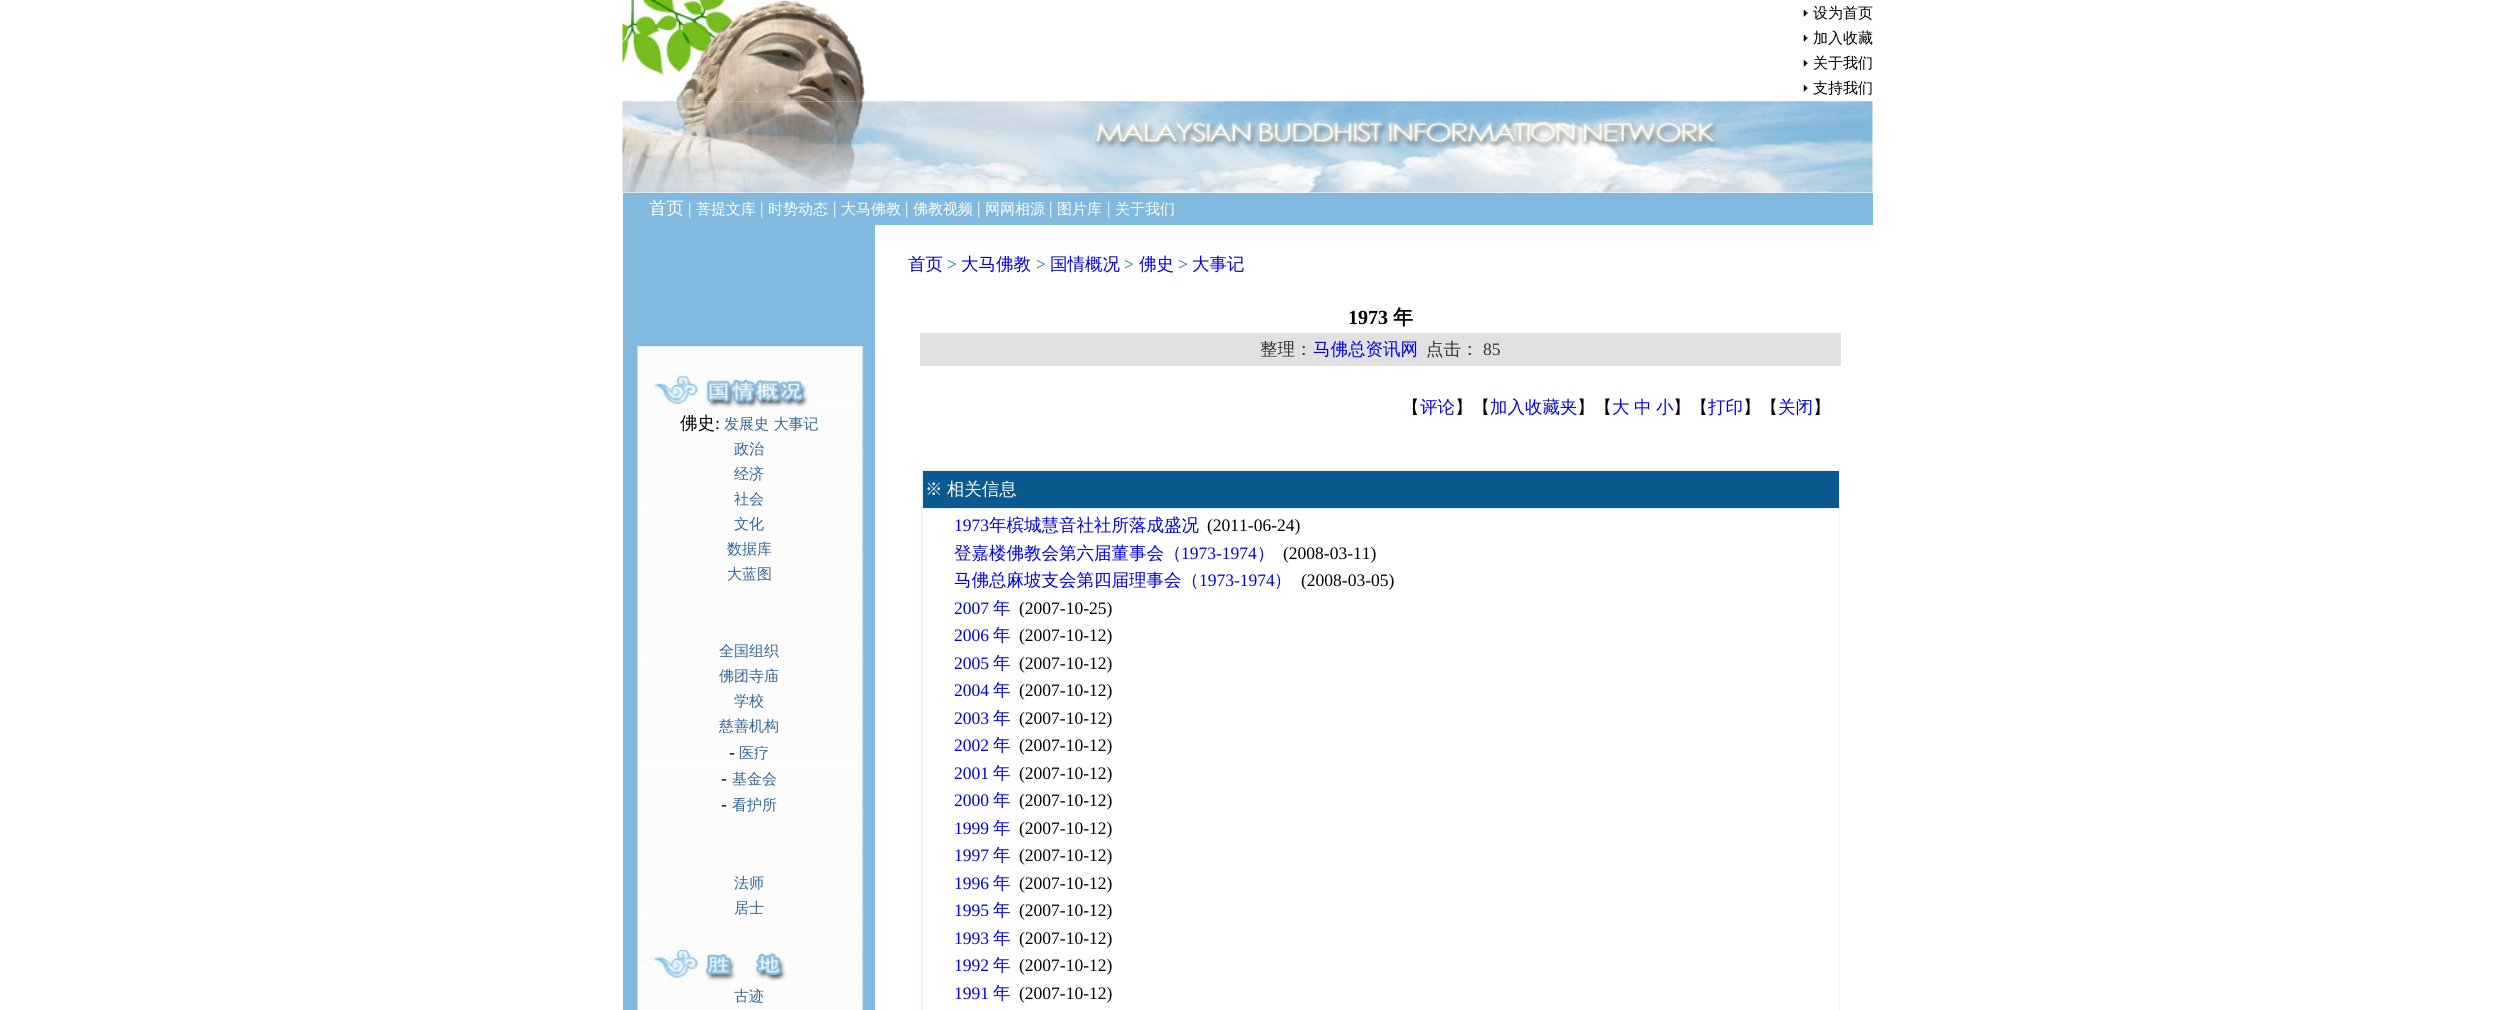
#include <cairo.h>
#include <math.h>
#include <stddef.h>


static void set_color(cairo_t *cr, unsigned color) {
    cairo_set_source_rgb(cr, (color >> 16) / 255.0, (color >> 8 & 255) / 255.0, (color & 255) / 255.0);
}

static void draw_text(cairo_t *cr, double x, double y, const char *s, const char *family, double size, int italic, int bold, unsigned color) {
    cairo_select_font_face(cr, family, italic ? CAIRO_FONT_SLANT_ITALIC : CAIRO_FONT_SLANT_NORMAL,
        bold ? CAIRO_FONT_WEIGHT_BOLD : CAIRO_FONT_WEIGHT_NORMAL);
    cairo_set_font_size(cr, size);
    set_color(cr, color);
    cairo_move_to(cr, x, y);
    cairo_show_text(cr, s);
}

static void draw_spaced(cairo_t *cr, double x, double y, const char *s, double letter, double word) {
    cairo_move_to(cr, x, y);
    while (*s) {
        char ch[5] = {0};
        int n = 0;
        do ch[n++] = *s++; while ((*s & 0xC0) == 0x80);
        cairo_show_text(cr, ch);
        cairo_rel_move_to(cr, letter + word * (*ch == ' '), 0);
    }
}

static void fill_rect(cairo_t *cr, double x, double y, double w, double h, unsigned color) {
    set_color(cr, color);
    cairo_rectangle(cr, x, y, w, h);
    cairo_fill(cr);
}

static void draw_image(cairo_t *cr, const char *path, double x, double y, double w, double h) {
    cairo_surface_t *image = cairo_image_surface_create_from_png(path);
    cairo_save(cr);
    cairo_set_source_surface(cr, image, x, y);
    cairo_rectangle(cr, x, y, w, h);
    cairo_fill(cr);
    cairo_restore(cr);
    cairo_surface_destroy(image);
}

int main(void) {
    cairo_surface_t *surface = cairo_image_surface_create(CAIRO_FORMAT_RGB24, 2494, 1010);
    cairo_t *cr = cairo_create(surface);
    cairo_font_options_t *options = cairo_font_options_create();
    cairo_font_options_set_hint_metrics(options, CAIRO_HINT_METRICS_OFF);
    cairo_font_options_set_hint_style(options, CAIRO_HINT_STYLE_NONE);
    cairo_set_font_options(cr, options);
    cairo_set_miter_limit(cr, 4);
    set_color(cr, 0xFFFFFF);
    cairo_paint(cr);
    draw_image(cr, "assets/img1.png", 622, 0, 244, 102);
    draw_image(cr, "assets/img2.png", 1803, 9, 5, 8);
    draw_text(cr, 1813, 18, "设为首页", "WenQuanYi Zen Hei Medium", 15, 0, 0, 0x000000);
    draw_image(cr, "assets/img2.png", 1803, 34, 5, 8);
    draw_text(cr, 1813, 43, "加入收藏", "WenQuanYi Zen Hei Medium", 15, 0, 0, 0x000000);
    draw_image(cr, "assets/img2.png", 1803, 59, 5, 8);
    draw_text(cr, 1813, 68, "关于我们", "WenQuanYi Zen Hei Medium", 15, 0, 0, 0x000000);
    draw_image(cr, "assets/img2.png", 1803, 84, 5, 8);
    draw_text(cr, 1813, 93, "支持我们", "WenQuanYi Zen Hei Medium", 15, 0, 0, 0x000000);
    draw_image(cr, "assets/img3.png", 622, 101, 1251, 92);
    fill_rect(cr, 623, 193, 1250, 32, 0x82B9DF);
    draw_text(cr, 649, 214, "首页", "WenQuanYi Zen Hei Medium", 17.5, 0, 0, 0xFFFFFF);
    draw_text(cr, 688, 214, "|", "Liberation Serif", 17.5, 0, 0, 0xFFFFFF);
    draw_text(cr, 696, 214, "菩提文库", "WenQuanYi Zen Hei Medium", 15, 0, 0, 0xFFFFFF);
    draw_text(cr, 760, 214, "|", "Liberation Serif", 17.5, 0, 0, 0xFFFFFF);
    draw_text(cr, 768, 214, "时势动态", "WenQuanYi Zen Hei Medium", 15, 0, 0, 0xFFFFFF);
    draw_text(cr, 833, 214, "|", "Liberation Serif", 17.5, 0, 0, 0xFFFFFF);
    draw_text(cr, 841, 214, "大马佛教", "WenQuanYi Zen Hei Medium", 15, 0, 0, 0xFFFFFF);
    draw_text(cr, 905, 214, "|", "Liberation Serif", 17.5, 0, 0, 0xFFFFFF);
    draw_text(cr, 913, 214, "佛教视频", "WenQuanYi Zen Hei Medium", 15, 0, 0, 0xFFFFFF);
    draw_text(cr, 977, 214, "|", "Liberation Serif", 17.5, 0, 0, 0xFFFFFF);
    draw_text(cr, 985, 214, "网网相源", "WenQuanYi Zen Hei Medium", 15, 0, 0, 0xFFFFFF);
    draw_text(cr, 1049, 214, "|", "Liberation Serif", 17.5, 0, 0, 0xFFFFFF);
    draw_text(cr, 1057, 214, "图片库", "WenQuanYi Zen Hei Medium", 15, 0, 0, 0xFFFFFF);
    draw_text(cr, 1107, 214, "|", "Liberation Serif", 17.5, 0, 0, 0xFFFFFF);
    draw_text(cr, 1115, 214, "关于我们", "WenQuanYi Zen Hei Medium", 15, 0, 0, 0xFFFFFF);
    fill_rect(cr, 623, 225, 252, 785, 0x82B9DF);
    draw_image(cr, "assets/img4.png", 637, 346, 227, 664);
    draw_image(cr, "assets/img5.png", 646, 372, 163, 38);
    draw_text(cr, 680, 429, "佛史", "WenQuanYi Zen Hei Medium", 17.5, 0, 0, 0x000000);
    draw_text(cr, 715, 429, ":", "Liberation Serif", 17.5, 0, 0, 0x000000);
    draw_text(cr, 724, 429, "发展史 大事记", "WenQuanYi Zen Hei Medium", 15, 0, 0, 0x336699);
    draw_text(cr, 734, 454, "政治", "WenQuanYi Zen Hei Medium", 15, 0, 0, 0x336699);
    draw_text(cr, 734, 479, "经济", "WenQuanYi Zen Hei Medium", 15, 0, 0, 0x336699);
    draw_text(cr, 734, 504, "社会", "WenQuanYi Zen Hei Medium", 15, 0, 0, 0x336699);
    draw_text(cr, 734, 529, "文化", "WenQuanYi Zen Hei Medium", 15, 0, 0, 0x336699);
    draw_text(cr, 727, 554, "数据库", "WenQuanYi Zen Hei Medium", 15, 0, 0, 0x336699);
    draw_text(cr, 727, 579, "大蓝图", "WenQuanYi Zen Hei Medium", 15, 0, 0, 0x336699);
    draw_text(cr, 719, 656, "全国组织", "WenQuanYi Zen Hei Medium", 15, 0, 0, 0x336699);
    draw_text(cr, 719, 681, "佛团寺庙", "WenQuanYi Zen Hei Medium", 15, 0, 0, 0x336699);
    draw_text(cr, 734, 706, "学校", "WenQuanYi Zen Hei Medium", 15, 0, 0, 0x336699);
    draw_text(cr, 719, 731, "慈善机构", "WenQuanYi Zen Hei Medium", 15, 0, 0, 0x336699);
    draw_text(cr, 729, 758, "-", "Liberation Serif", 17.5, 0, 0, 0x000000);
    draw_text(cr, 739, 758, "医疗", "WenQuanYi Zen Hei Medium", 15, 0, 0, 0x336699);
    draw_text(cr, 721, 784, "-", "Liberation Serif", 17.5, 0, 0, 0x000000);
    draw_text(cr, 732, 784, "基金会", "WenQuanYi Zen Hei Medium", 15, 0, 0, 0x336699);
    draw_text(cr, 721, 810, "-", "Liberation Serif", 17.5, 0, 0, 0x000000);
    draw_text(cr, 732, 810, "看护所", "WenQuanYi Zen Hei Medium", 15, 0, 0, 0x336699);
    draw_text(cr, 734, 888, "法师", "WenQuanYi Zen Hei Medium", 15, 0, 0, 0x336699);
    draw_text(cr, 734, 913, "居士", "WenQuanYi Zen Hei Medium", 15, 0, 0, 0x336699);
    draw_image(cr, "assets/img6.png", 646, 946, 141, 38);
    draw_text(cr, 734, 1001, "古迹", "WenQuanYi Zen Hei Medium", 15, 0, 0, 0x336699);
    draw_text(cr, 908, 270, "首页", "WenQuanYi Zen Hei Medium", 17.5, 0, 0, 0x0000EE);
    draw_text(cr, 947, 270, ">", "Liberation Serif", 17.5, 0, 0, 0x006699);
    draw_text(cr, 961, 270, "大马佛教", "WenQuanYi Zen Hei Medium", 17.5, 0, 0, 0x0000EE);
    draw_text(cr, 1036, 270, ">", "Liberation Serif", 17.5, 0, 0, 0x006699);
    draw_text(cr, 1050, 270, "国情概况", "WenQuanYi Zen Hei Medium", 17.5, 0, 0, 0x0000EE);
    draw_text(cr, 1124, 270, ">", "Liberation Serif", 17.5, 0, 0, 0x006699);
    draw_text(cr, 1139, 270, "佛史", "WenQuanYi Zen Hei Medium", 17.5, 0, 0, 0x0000EE);
    draw_text(cr, 1178, 270, ">", "Liberation Serif", 17.5, 0, 0, 0x006699);
    draw_text(cr, 1192, 270, "大事记", "WenQuanYi Zen Hei Medium", 17.5, 0, 0, 0x0000EE);
    draw_text(cr, 1348, 324, "1973", "Liberation Serif", 20, 0, 1, 0x000000);
    draw_text(cr, 1393, 324, "年", "WenQuanYi Zen Hei", 20, 0, 1, 0x000000);
    fill_rect(cr, 920, 333, 921, 33, 0xE1E1E1);
    draw_text(cr, 1260, 355, "整理：", "WenQuanYi Zen Hei Medium", 17.5, 0, 0, 0x333333);
    draw_text(cr, 1313, 355, "马佛总资讯网", "WenQuanYi Zen Hei Medium", 17.5, 0, 0, 0x0000EE);
    draw_text(cr, 1426, 355, "点击：", "WenQuanYi Zen Hei Medium", 17.5, 0, 0, 0x333333);
    draw_text(cr, 1483, 355, "85", "Liberation Serif", 17.5, 0, 0, 0x333333);
    draw_text(cr, 1402, 413, "【", "WenQuanYi Zen Hei Medium", 17.5, 0, 0, 0x000000);
    draw_text(cr, 1420, 413, "评论", "WenQuanYi Zen Hei Medium", 17.5, 0, 0, 0x0000EE);
    draw_text(cr, 1455, 413, "】【", "WenQuanYi Zen Hei Medium", 17.5, 0, 0, 0x000000);
    draw_text(cr, 1490, 413, "加入收藏夹", "WenQuanYi Zen Hei Medium", 17.5, 0, 0, 0x0000EE);
    draw_text(cr, 1577, 413, "】【", "WenQuanYi Zen Hei Medium", 17.5, 0, 0, 0x000000);
    draw_text(cr, 1612, 413, "大", "WenQuanYi Zen Hei Medium", 17.5, 0, 0, 0x0000EE);
    draw_text(cr, 1634, 413, "中", "WenQuanYi Zen Hei Medium", 17.5, 0, 0, 0x0000EE);
    draw_text(cr, 1656, 413, "小", "WenQuanYi Zen Hei Medium", 17.5, 0, 0, 0x0000EE);
    draw_text(cr, 1673, 413, "】【", "WenQuanYi Zen Hei Medium", 17.5, 0, 0, 0x000000);
    draw_text(cr, 1708, 413, "打印", "WenQuanYi Zen Hei Medium", 17.5, 0, 0, 0x0000EE);
    draw_text(cr, 1743, 413, "】【", "WenQuanYi Zen Hei Medium", 17.5, 0, 0, 0x000000);
    draw_text(cr, 1778, 413, "关闭", "WenQuanYi Zen Hei Medium", 17.5, 0, 0, 0x0000EE);
    draw_text(cr, 1813, 413, "】", "WenQuanYi Zen Hei Medium", 17.5, 0, 0, 0x000000);
    fill_rect(cr, 921, 470, 919, 540, 0xE8F5FB);
    fill_rect(cr, 923, 471, 916, 37, 0x0A5A90);
    set_color(cr, 0xFFFFFF);
    draw_spaced(cr, 925, 495, "※ 相关信息", 0, -1);
    fill_rect(cr, 923, 509, 916, 501, 0xFFFFFF);
    draw_text(cr, 954, 531, "1973", "Liberation Serif", 17.5, 0, 0, 0x0000EE);
    draw_text(cr, 989, 531, "年槟城慧音社社所落成盛况", "WenQuanYi Zen Hei Medium", 17.5, 0, 0, 0x0000EE);
    draw_text(cr, 1207, 531, "(2011-06-24)", "Liberation Serif", 17.5, 0, 0, 0x000000);
    draw_text(cr, 954, 559, "登嘉楼佛教会第六届董事会（", "WenQuanYi Zen Hei Medium", 17.5, 0, 0, 0x0000EE);
    draw_text(cr, 1181, 559, "1973-1974", "Liberation Serif", 17.5, 0, 0, 0x0000EE);
    draw_text(cr, 1257, 559, "）", "WenQuanYi Zen Hei Medium", 17.5, 0, 0, 0x0000EE);
    draw_text(cr, 1283, 559, "(2008-03-11)", "Liberation Serif", 17.5, 0, 0, 0x000000);
    draw_text(cr, 954, 586, "马佛总麻坡支会第四届理事会（", "WenQuanYi Zen Hei Medium", 17.5, 0, 0, 0x0000EE);
    draw_text(cr, 1199, 586, "1973-1974", "Liberation Serif", 17.5, 0, 0, 0x0000EE);
    draw_text(cr, 1274, 586, "）", "WenQuanYi Zen Hei Medium", 17.5, 0, 0, 0x0000EE);
    draw_text(cr, 1301, 586, "(2008-03-05)", "Liberation Serif", 17.5, 0, 0, 0x000000);
    draw_text(cr, 954, 614, "2007", "Liberation Serif", 17.5, 0, 0, 0x0000EE);
    draw_text(cr, 993, 614, "年", "WenQuanYi Zen Hei Medium", 17.5, 0, 0, 0x0000EE);
    draw_text(cr, 1019, 614, "(2007-10-25)", "Liberation Serif", 17.5, 0, 0, 0x000000);
    draw_text(cr, 954, 641, "2006", "Liberation Serif", 17.5, 0, 0, 0x0000EE);
    draw_text(cr, 993, 641, "年", "WenQuanYi Zen Hei Medium", 17.5, 0, 0, 0x0000EE);
    draw_text(cr, 1019, 641, "(2007-10-12)", "Liberation Serif", 17.5, 0, 0, 0x000000);
    draw_text(cr, 954, 669, "2005", "Liberation Serif", 17.5, 0, 0, 0x0000EE);
    draw_text(cr, 993, 669, "年", "WenQuanYi Zen Hei Medium", 17.5, 0, 0, 0x0000EE);
    draw_text(cr, 1019, 669, "(2007-10-12)", "Liberation Serif", 17.5, 0, 0, 0x000000);
    draw_text(cr, 954, 696, "2004", "Liberation Serif", 17.5, 0, 0, 0x0000EE);
    draw_text(cr, 993, 696, "年", "WenQuanYi Zen Hei Medium", 17.5, 0, 0, 0x0000EE);
    draw_text(cr, 1019, 696, "(2007-10-12)", "Liberation Serif", 17.5, 0, 0, 0x000000);
    draw_text(cr, 954, 724, "2003", "Liberation Serif", 17.5, 0, 0, 0x0000EE);
    draw_text(cr, 993, 724, "年", "WenQuanYi Zen Hei Medium", 17.5, 0, 0, 0x0000EE);
    draw_text(cr, 1019, 724, "(2007-10-12)", "Liberation Serif", 17.5, 0, 0, 0x000000);
    draw_text(cr, 954, 751, "2002", "Liberation Serif", 17.5, 0, 0, 0x0000EE);
    draw_text(cr, 993, 751, "年", "WenQuanYi Zen Hei Medium", 17.5, 0, 0, 0x0000EE);
    draw_text(cr, 1019, 751, "(2007-10-12)", "Liberation Serif", 17.5, 0, 0, 0x000000);
    draw_text(cr, 954, 779, "2001", "Liberation Serif", 17.5, 0, 0, 0x0000EE);
    draw_text(cr, 993, 779, "年", "WenQuanYi Zen Hei Medium", 17.5, 0, 0, 0x0000EE);
    draw_text(cr, 1019, 779, "(2007-10-12)", "Liberation Serif", 17.5, 0, 0, 0x000000);
    draw_text(cr, 954, 806, "2000", "Liberation Serif", 17.5, 0, 0, 0x0000EE);
    draw_text(cr, 993, 806, "年", "WenQuanYi Zen Hei Medium", 17.5, 0, 0, 0x0000EE);
    draw_text(cr, 1019, 806, "(2007-10-12)", "Liberation Serif", 17.5, 0, 0, 0x000000);
    draw_text(cr, 954, 834, "1999", "Liberation Serif", 17.5, 0, 0, 0x0000EE);
    draw_text(cr, 993, 834, "年", "WenQuanYi Zen Hei Medium", 17.5, 0, 0, 0x0000EE);
    draw_text(cr, 1019, 834, "(2007-10-12)", "Liberation Serif", 17.5, 0, 0, 0x000000);
    draw_text(cr, 954, 861, "1997", "Liberation Serif", 17.5, 0, 0, 0x0000EE);
    draw_text(cr, 993, 861, "年", "WenQuanYi Zen Hei Medium", 17.5, 0, 0, 0x0000EE);
    draw_text(cr, 1019, 861, "(2007-10-12)", "Liberation Serif", 17.5, 0, 0, 0x000000);
    draw_text(cr, 954, 889, "1996", "Liberation Serif", 17.5, 0, 0, 0x0000EE);
    draw_text(cr, 993, 889, "年", "WenQuanYi Zen Hei Medium", 17.5, 0, 0, 0x0000EE);
    draw_text(cr, 1019, 889, "(2007-10-12)", "Liberation Serif", 17.5, 0, 0, 0x000000);
    draw_text(cr, 954, 916, "1995", "Liberation Serif", 17.5, 0, 0, 0x0000EE);
    draw_text(cr, 993, 916, "年", "WenQuanYi Zen Hei Medium", 17.5, 0, 0, 0x0000EE);
    draw_text(cr, 1019, 916, "(2007-10-12)", "Liberation Serif", 17.5, 0, 0, 0x000000);
    draw_text(cr, 954, 944, "1993", "Liberation Serif", 17.5, 0, 0, 0x0000EE);
    draw_text(cr, 993, 944, "年", "WenQuanYi Zen Hei Medium", 17.5, 0, 0, 0x0000EE);
    draw_text(cr, 1019, 944, "(2007-10-12)", "Liberation Serif", 17.5, 0, 0, 0x000000);
    draw_text(cr, 954, 971, "1992", "Liberation Serif", 17.5, 0, 0, 0x0000EE);
    draw_text(cr, 993, 971, "年", "WenQuanYi Zen Hei Medium", 17.5, 0, 0, 0x0000EE);
    draw_text(cr, 1019, 971, "(2007-10-12)", "Liberation Serif", 17.5, 0, 0, 0x000000);
    draw_text(cr, 954, 999, "1991", "Liberation Serif", 17.5, 0, 0, 0x0000EE);
    draw_text(cr, 993, 999, "年", "WenQuanYi Zen Hei Medium", 17.5, 0, 0, 0x0000EE);
    draw_text(cr, 1019, 999, "(2007-10-12)", "Liberation Serif", 17.5, 0, 0, 0x000000);
    cairo_surface_write_to_png(surface, "output.png");
    cairo_font_options_destroy(options);
    cairo_destroy(cr);
    cairo_surface_destroy(surface);
    return 0;
}
